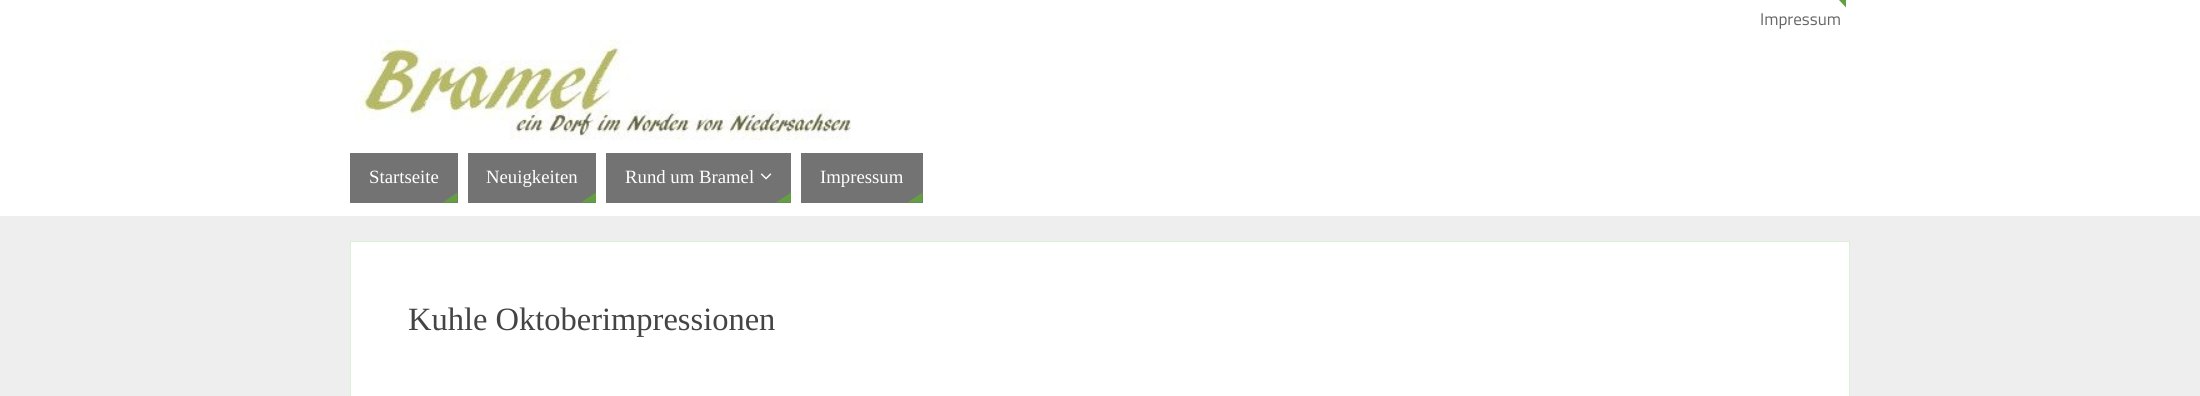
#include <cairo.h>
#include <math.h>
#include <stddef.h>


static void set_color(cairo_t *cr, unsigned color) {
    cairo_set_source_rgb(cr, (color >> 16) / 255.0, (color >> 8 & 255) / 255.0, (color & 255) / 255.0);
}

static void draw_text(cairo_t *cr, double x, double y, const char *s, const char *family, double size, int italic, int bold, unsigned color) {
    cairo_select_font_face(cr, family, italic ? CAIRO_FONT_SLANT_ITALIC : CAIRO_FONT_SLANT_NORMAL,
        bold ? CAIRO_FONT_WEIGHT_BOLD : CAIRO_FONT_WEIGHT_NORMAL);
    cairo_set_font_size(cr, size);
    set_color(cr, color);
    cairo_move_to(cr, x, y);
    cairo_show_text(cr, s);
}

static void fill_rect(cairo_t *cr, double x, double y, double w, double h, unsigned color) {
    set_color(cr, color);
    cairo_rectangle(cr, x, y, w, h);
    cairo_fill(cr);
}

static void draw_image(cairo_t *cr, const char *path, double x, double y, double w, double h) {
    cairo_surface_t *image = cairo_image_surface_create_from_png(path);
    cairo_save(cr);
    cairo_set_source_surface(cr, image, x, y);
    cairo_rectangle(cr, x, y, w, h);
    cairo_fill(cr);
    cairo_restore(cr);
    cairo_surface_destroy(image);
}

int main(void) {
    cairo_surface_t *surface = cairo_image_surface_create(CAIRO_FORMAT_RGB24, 2200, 396);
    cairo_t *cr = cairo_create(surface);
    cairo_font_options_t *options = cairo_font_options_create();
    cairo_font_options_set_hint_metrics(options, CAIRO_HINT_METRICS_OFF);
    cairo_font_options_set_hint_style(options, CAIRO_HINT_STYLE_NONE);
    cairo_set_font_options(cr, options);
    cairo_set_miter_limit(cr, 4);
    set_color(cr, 0xEEEEEE);
    cairo_paint(cr);
    fill_rect(cr, 0, 0, 2200, 216, 0xFFFFFF);
    set_color(cr, 0x639E43);
    cairo_new_path(cr);
    cairo_move_to(cr, 1839, 0);
    cairo_line_to(cr, 1846, 0);
    cairo_line_to(cr, 1846, 7.5);
    cairo_close_path(cr);
    cairo_fill(cr);
    draw_text(cr, 1760, 25, "Impressum", "Titillium Web", 17, 0, 0, 0x666666);
    draw_image(cr, "assets/img1.png", 355, 40, 497, 100);
    fill_rect(cr, 350, 153, 108, 50, 0x737373);
    draw_text(cr, 369, 183, "Startseite", "Liberation Serif", 18.75, 0, 0, 0xFFFFFF);
    set_color(cr, 0x639E43);
    cairo_new_path(cr);
    cairo_move_to(cr, 457.5, 202.5);
    cairo_line_to(cr, 442.5, 202.5);
    cairo_line_to(cr, 457.5, 192.5);
    cairo_close_path(cr);
    cairo_fill(cr);
    fill_rect(cr, 468, 153, 128, 50, 0x737373);
    draw_text(cr, 486, 183, "Neuigkeiten", "Liberation Serif", 18.75, 0, 0, 0xFFFFFF);
    set_color(cr, 0x639E43);
    cairo_new_path(cr);
    cairo_move_to(cr, 596, 202.5);
    cairo_line_to(cr, 581, 202.5);
    cairo_line_to(cr, 596, 192.5);
    cairo_close_path(cr);
    cairo_fill(cr);
    fill_rect(cr, 606, 153, 185, 50, 0x737373);
    draw_text(cr, 625, 183, "Rund um Bramel", "Liberation Serif", 18.75, 0, 0, 0xFFFFFF);
    draw_image(cr, "assets/img2.png", 760, 173, 12, 7);
    set_color(cr, 0x639E43);
    cairo_new_path(cr);
    cairo_move_to(cr, 791, 202.5);
    cairo_line_to(cr, 776, 202.5);
    cairo_line_to(cr, 791, 192.5);
    cairo_close_path(cr);
    cairo_fill(cr);
    fill_rect(cr, 801, 153, 122, 50, 0x737373);
    draw_text(cr, 820, 183, "Impressum", "Liberation Serif", 18.75, 0, 0, 0xFFFFFF);
    set_color(cr, 0x639E43);
    cairo_new_path(cr);
    cairo_move_to(cr, 922.5, 202.5);
    cairo_line_to(cr, 907.5, 202.5);
    cairo_line_to(cr, 922.5, 192.5);
    cairo_close_path(cr);
    cairo_fill(cr);
    set_color(cr, 0xFFFFFF);
    cairo_rectangle(cr, 350.5, 241.5, 1499, 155);
    cairo_fill_preserve(cr);
    set_color(cr, 0xDFEED7);
    cairo_set_line_width(cr, 1);
    cairo_stroke(cr);
    draw_text(cr, 408, 330, "Kuhle Oktoberimpressionen", "Liberation Serif", 32.5, 0, 0, 0x444444);
    cairo_surface_write_to_png(surface, "output.png");
    cairo_font_options_destroy(options);
    cairo_destroy(cr);
    cairo_surface_destroy(surface);
    return 0;
}
